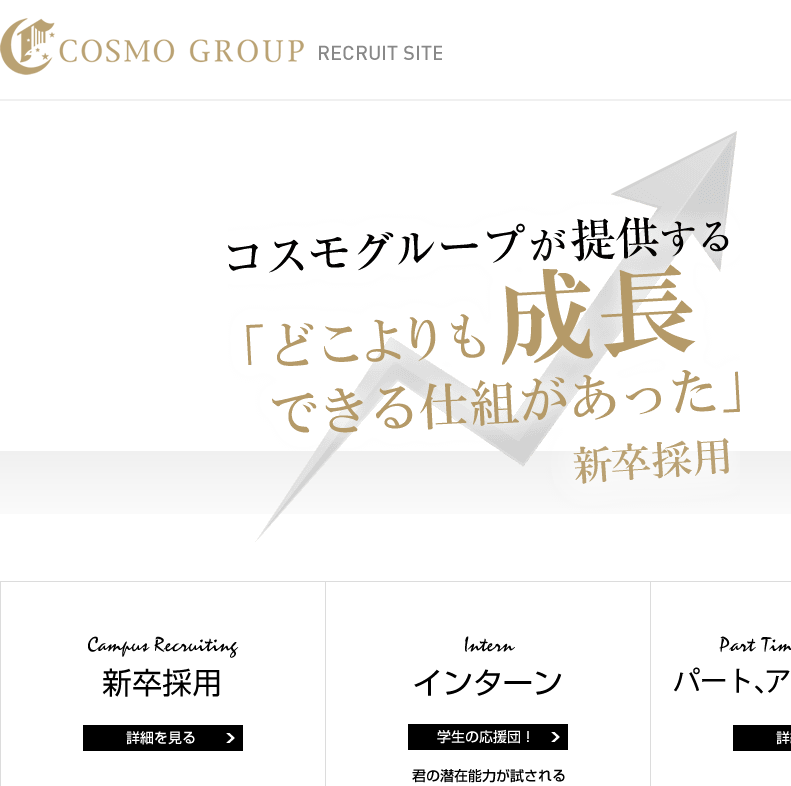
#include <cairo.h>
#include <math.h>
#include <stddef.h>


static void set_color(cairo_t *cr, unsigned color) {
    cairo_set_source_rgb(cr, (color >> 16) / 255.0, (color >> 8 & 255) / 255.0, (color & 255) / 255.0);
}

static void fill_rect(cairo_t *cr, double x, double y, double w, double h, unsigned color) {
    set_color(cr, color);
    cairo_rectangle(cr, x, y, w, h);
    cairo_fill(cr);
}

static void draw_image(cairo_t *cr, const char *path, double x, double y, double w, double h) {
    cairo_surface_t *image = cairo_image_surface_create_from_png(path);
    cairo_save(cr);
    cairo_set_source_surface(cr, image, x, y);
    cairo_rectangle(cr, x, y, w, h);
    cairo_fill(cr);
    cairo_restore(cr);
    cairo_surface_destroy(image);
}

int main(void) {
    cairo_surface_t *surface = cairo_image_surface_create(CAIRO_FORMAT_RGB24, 791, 786);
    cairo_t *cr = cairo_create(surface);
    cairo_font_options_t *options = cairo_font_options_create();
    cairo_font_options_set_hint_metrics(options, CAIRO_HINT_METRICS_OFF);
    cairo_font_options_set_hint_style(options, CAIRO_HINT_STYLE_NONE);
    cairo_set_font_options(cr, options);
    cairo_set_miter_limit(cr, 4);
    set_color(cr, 0xFFFFFF);
    cairo_paint(cr);
    fill_rect(cr, 0, 99, 791, 2, 0xF0F0F0);
    draw_image(cr, "assets/img1.png", 0, 18, 442, 57);
    draw_image(cr, "assets/img2.png", 0, 451, 791, 63);
    draw_image(cr, "assets/img3.png", 228, 131, 512, 411);
    fill_rect(cr, 0, 581, 791, 1, 0xDCDCDC);
    fill_rect(cr, 0, 581, 1, 205, 0xDCDCDC);
    fill_rect(cr, 325, 582, 1, 204, 0xDCDCDC);
    draw_image(cr, "assets/img4.png", 88, 636, 151, 61);
    draw_image(cr, "assets/img5.png", 83, 725, 160, 26);
    fill_rect(cr, 650, 582, 1, 204, 0xDCDCDC);
    draw_image(cr, "assets/img6.png", 414, 636, 148, 60);
    draw_image(cr, "assets/img7.png", 408, 724, 160, 26);
    draw_image(cr, "assets/img8.png", 412, 769, 153, 14);
    draw_image(cr, "assets/img9.png", 674, 636, 117, 58);
    draw_image(cr, "assets/img10.png", 733, 725, 58, 26);
    cairo_surface_write_to_png(surface, "output.png");
    cairo_font_options_destroy(options);
    cairo_destroy(cr);
    cairo_surface_destroy(surface);
    return 0;
}
